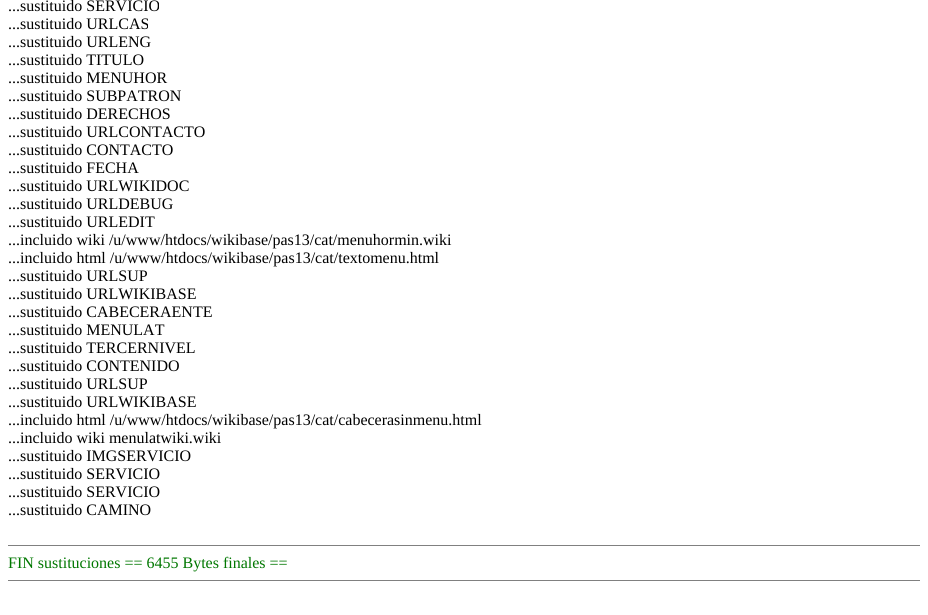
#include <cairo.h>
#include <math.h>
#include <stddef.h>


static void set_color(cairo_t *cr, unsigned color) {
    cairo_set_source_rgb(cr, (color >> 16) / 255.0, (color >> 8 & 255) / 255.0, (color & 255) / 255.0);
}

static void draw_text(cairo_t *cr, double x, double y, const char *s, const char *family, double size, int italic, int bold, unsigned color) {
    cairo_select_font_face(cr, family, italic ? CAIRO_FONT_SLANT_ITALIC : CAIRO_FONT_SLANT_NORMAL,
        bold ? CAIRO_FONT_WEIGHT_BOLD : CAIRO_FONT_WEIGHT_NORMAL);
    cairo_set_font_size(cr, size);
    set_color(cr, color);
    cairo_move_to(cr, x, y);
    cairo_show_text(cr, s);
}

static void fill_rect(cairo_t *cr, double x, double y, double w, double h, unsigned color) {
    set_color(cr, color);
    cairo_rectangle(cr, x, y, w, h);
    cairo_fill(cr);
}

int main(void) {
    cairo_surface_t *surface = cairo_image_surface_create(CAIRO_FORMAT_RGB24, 928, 615);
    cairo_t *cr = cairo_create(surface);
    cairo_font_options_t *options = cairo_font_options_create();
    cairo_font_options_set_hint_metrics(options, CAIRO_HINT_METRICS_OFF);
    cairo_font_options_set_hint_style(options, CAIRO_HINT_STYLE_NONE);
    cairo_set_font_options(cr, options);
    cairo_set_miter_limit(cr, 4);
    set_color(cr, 0xFFFFFF);
    cairo_paint(cr);
    draw_text(cr, 8, 11, "...sustituido SERVICIO", "Liberation Serif", 16, 0, 0, 0x000000);
    draw_text(cr, 8, 29, "...sustituido URLCAS", "Liberation Serif", 16, 0, 0, 0x000000);
    draw_text(cr, 8, 47, "...sustituido URLENG", "Liberation Serif", 16, 0, 0, 0x000000);
    draw_text(cr, 8, 65, "...sustituido TITULO", "Liberation Serif", 16, 0, 0, 0x000000);
    draw_text(cr, 8, 83, "...sustituido MENUHOR", "Liberation Serif", 16, 0, 0, 0x000000);
    draw_text(cr, 8, 101, "...sustituido SUBPATRON", "Liberation Serif", 16, 0, 0, 0x000000);
    draw_text(cr, 8, 119, "...sustituido DERECHOS", "Liberation Serif", 16, 0, 0, 0x000000);
    draw_text(cr, 8, 137, "...sustituido URLCONTACTO", "Liberation Serif", 16, 0, 0, 0x000000);
    draw_text(cr, 8, 155, "...sustituido CONTACTO", "Liberation Serif", 16, 0, 0, 0x000000);
    draw_text(cr, 8, 173, "...sustituido FECHA", "Liberation Serif", 16, 0, 0, 0x000000);
    draw_text(cr, 8, 191, "...sustituido URLWIKIDOC", "Liberation Serif", 16, 0, 0, 0x000000);
    draw_text(cr, 8, 209, "...sustituido URLDEBUG", "Liberation Serif", 16, 0, 0, 0x000000);
    draw_text(cr, 8, 227, "...sustituido URLEDIT", "Liberation Serif", 16, 0, 0, 0x000000);
    draw_text(cr, 8, 245, "...incluido wiki /u/www/htdocs/wikibase/pas13/cat/menuhormin.wiki", "Liberation Serif", 16, 0, 0, 0x000000);
    draw_text(cr, 8, 263, "...incluido html /u/www/htdocs/wikibase/pas13/cat/textomenu.html", "Liberation Serif", 16, 0, 0, 0x000000);
    draw_text(cr, 8, 281, "...sustituido URLSUP", "Liberation Serif", 16, 0, 0, 0x000000);
    draw_text(cr, 8, 299, "...sustituido URLWIKIBASE", "Liberation Serif", 16, 0, 0, 0x000000);
    draw_text(cr, 8, 317, "...sustituido CABECERAENTE", "Liberation Serif", 16, 0, 0, 0x000000);
    draw_text(cr, 8, 335, "...sustituido MENULAT", "Liberation Serif", 16, 0, 0, 0x000000);
    draw_text(cr, 8, 353, "...sustituido TERCERNIVEL", "Liberation Serif", 16, 0, 0, 0x000000);
    draw_text(cr, 8, 371, "...sustituido CONTENIDO", "Liberation Serif", 16, 0, 0, 0x000000);
    draw_text(cr, 8, 389, "...sustituido URLSUP", "Liberation Serif", 16, 0, 0, 0x000000);
    draw_text(cr, 8, 407, "...sustituido URLWIKIBASE", "Liberation Serif", 16, 0, 0, 0x000000);
    draw_text(cr, 8, 425, "...incluido html /u/www/htdocs/wikibase/pas13/cat/cabecerasinmenu.html", "Liberation Serif", 16, 0, 0, 0x000000);
    draw_text(cr, 8, 443, "...incluido wiki menulatwiki.wiki", "Liberation Serif", 16, 0, 0, 0x000000);
    draw_text(cr, 8, 461, "...sustituido IMGSERVICIO", "Liberation Serif", 16, 0, 0, 0x000000);
    draw_text(cr, 8, 479, "...sustituido SERVICIO", "Liberation Serif", 16, 0, 0, 0x000000);
    draw_text(cr, 8, 497, "...sustituido SERVICIO", "Liberation Serif", 16, 0, 0, 0x000000);
    draw_text(cr, 8, 515, "...sustituido CAMINO", "Liberation Serif", 16, 0, 0, 0x000000);
    fill_rect(cr, 8, 545, 912, 1, 0x808080);
    draw_text(cr, 8, 568, "FIN sustituciones == 6455 Bytes finales ==", "Liberation Serif", 16, 0, 0, 0x007700);
    fill_rect(cr, 8, 580, 912, 1, 0x808080);
    cairo_surface_write_to_png(surface, "output.png");
    cairo_font_options_destroy(options);
    cairo_destroy(cr);
    cairo_surface_destroy(surface);
    return 0;
}
